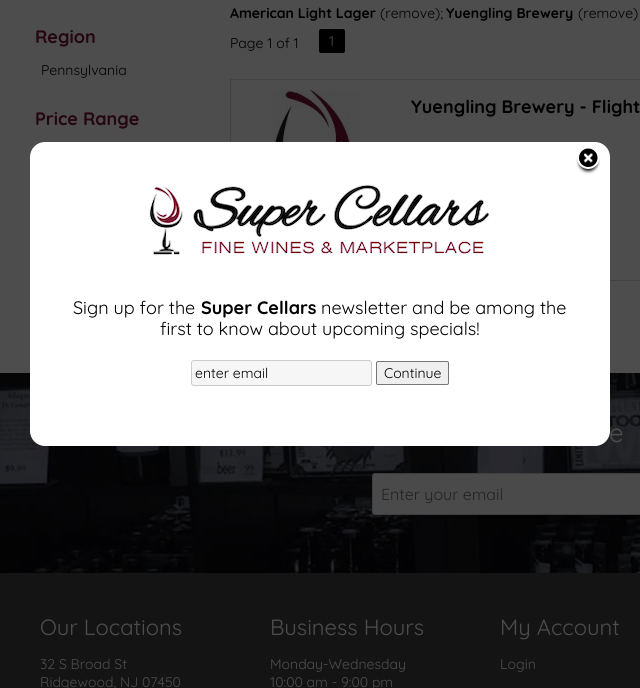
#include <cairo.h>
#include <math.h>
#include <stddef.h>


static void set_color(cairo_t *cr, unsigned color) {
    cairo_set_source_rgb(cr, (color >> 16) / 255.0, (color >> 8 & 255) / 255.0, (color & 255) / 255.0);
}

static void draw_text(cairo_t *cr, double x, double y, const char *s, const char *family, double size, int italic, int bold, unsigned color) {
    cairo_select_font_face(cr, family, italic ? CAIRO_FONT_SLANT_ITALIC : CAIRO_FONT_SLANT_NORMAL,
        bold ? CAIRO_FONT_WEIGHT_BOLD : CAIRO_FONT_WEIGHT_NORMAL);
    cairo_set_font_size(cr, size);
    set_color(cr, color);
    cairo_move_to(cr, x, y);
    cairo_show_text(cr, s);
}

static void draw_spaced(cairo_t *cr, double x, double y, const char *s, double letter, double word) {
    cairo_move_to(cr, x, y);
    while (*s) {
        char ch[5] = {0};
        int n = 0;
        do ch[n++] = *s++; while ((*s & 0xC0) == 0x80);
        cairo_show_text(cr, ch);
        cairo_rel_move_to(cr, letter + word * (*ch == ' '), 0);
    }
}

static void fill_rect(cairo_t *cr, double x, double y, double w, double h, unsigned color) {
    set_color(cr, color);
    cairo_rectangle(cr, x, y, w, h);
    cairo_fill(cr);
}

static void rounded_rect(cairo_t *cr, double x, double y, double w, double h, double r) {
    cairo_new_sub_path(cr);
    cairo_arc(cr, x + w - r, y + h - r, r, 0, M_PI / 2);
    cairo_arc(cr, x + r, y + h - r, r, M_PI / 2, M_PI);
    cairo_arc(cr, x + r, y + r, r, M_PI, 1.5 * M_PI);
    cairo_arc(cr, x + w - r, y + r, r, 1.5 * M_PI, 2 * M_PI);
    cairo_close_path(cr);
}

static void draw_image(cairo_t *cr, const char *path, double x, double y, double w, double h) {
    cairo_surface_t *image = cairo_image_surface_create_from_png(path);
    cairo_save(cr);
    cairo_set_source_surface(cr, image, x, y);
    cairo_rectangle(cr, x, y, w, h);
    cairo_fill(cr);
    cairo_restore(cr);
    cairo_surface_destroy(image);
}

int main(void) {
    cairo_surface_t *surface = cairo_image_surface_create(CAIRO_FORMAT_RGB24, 640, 688);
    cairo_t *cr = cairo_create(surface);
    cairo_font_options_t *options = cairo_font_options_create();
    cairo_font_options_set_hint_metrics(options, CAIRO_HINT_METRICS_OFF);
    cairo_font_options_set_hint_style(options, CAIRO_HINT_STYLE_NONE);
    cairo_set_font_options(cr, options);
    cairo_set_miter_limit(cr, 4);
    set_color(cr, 0x4D4D4D);
    cairo_paint(cr);
    draw_text(cr, 35, 43, "Region", "Quicksand", 18, 0, 1, 0x240510);
    draw_text(cr, 41, 75, "Pennsylvania", "Quicksand", 14, 0, 0, 0x000000);
    draw_text(cr, 35, 125, "Price Range", "Quicksand", 18, 0, 1, 0x240510);
    draw_text(cr, 230, 18, "American Light Lager", "Quicksand", 14, 0, 1, 0x000000);
    draw_text(cr, 380, 18, "(remove", "Quicksand", 14, 0, 0, 0x000000);
    draw_text(cr, 435, 18, ");", "Quicksand", 14, 0, 0, 0x000000);
    draw_text(cr, 446, 18, "Yuengling Brewery", "Quicksand", 14, 0, 1, 0x000000);
    draw_text(cr, 578, 18, "(remove", "Quicksand", 14, 0, 0, 0x000000);
    draw_text(cr, 633, 18, ")", "Quicksand", 14, 0, 0, 0x000000);
    draw_text(cr, 230, 48, "Page 1 of 1", "Quicksand", 14, 0, 0, 0x000000);
    rounded_rect(cr, 319, 29, 26, 24, 2);
    cairo_fill(cr);
    draw_text(cr, 329, 46, "1", "Quicksand", 14, 0, 0, 0x4D4D4D);
    cairo_rectangle(cr, 230.5, 79.5, 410, 201);
    set_color(cr, 0x424242);
    cairo_set_line_width(cr, 1);
    cairo_stroke(cr);
    draw_image(cr, "assets/img1.png", 273, 90, 87, 52);
    draw_text(cr, 411, 113, "Yuengling Brewery - Flight", "Quicksand", 18, 0, 1, 0x000000);
    draw_image(cr, "assets/img4.png", 0, 373, 640, 200);
    set_color(cr, 0xFFFFFF);
    rounded_rect(cr, 30, 142, 580, 304, 15);
    cairo_fill(cr);
    draw_image(cr, "assets/img2.png", 576, 148, 24, 26);
    draw_image(cr, "assets/img3.png", 149, 185, 341, 70);
    draw_text(cr, 73, 314, "Sign up for the", "Quicksand", 18, 0, 0, 0x000000);
    draw_text(cr, 201, 314, "Super Cellars", "Quicksand", 18, 0, 1, 0x000000);
    draw_text(cr, 321, 314, "newsletter and be among the", "Quicksand", 18, 0, 0, 0x000000);
    draw_text(cr, 160, 335, "first to know about upcoming specials!", "Quicksand", 18, 0, 0, 0x000000);
    set_color(cr, 0xF6F6F6);
    rounded_rect(cr, 191.5, 360.5, 180, 25, 2.5);
    cairo_fill_preserve(cr);
    set_color(cr, 0xCCCCCC);
    cairo_stroke(cr);
    draw_text(cr, 195, 378, "enter email", "Quicksand", 14, 0, 0, 0x000000);
    set_color(cr, 0xEFEFEF);
    rounded_rect(cr, 376.5, 361.5, 72, 23, 1.5);
    cairo_fill_preserve(cr);
    set_color(cr, 0x767676);
    cairo_stroke(cr);
    draw_text(cr, 384, 378, "Continue", "Quicksand", 14, 0, 0, 0x000000);
    cairo_set_font_size(cr, 26);
    set_color(cr, 0x4D4D4D);
    draw_spaced(cr, 609, 442, "e", 3, 0);
    set_color(cr, 0x4A4A4A);
    rounded_rect(cr, 372.5, 473.5, 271, 41, 2.5);
    cairo_fill_preserve(cr);
    set_color(cr, 0x3D3D3D);
    cairo_stroke(cr);
    draw_text(cr, 381, 500, "Enter your email", "Quicksand", 16, 0, 0, 0x232323);
    fill_rect(cr, 0, 573, 640, 115, 0x141414);
    draw_text(cr, 40, 635, "Our Locations", "Quicksand", 22, 0, 0, 0x4D4D4D);
    draw_text(cr, 40, 669, "32 S Broad St", "Quicksand", 14, 0, 0, 0x4D4D4D);
    draw_text(cr, 40, 687, "Ridgewood, NJ 07450", "Quicksand", 14, 0, 0, 0x4D4D4D);
    draw_text(cr, 270, 635, "Business Hours", "Quicksand", 22, 0, 0, 0x4D4D4D);
    draw_text(cr, 270, 669, "Monday-Wednesday", "Quicksand", 14, 0, 0, 0x4D4D4D);
    draw_text(cr, 270, 687, "10:00 am - 9:00 pm", "Quicksand", 14, 0, 0, 0x4D4D4D);
    draw_text(cr, 500, 635, "My Account", "Quicksand", 22, 0, 0, 0x4D4D4D);
    draw_text(cr, 500, 669, "Login", "Quicksand", 14, 0, 0, 0x4D4D4D);
    cairo_surface_write_to_png(surface, "output.png");
    cairo_font_options_destroy(options);
    cairo_destroy(cr);
    cairo_surface_destroy(surface);
    return 0;
}
